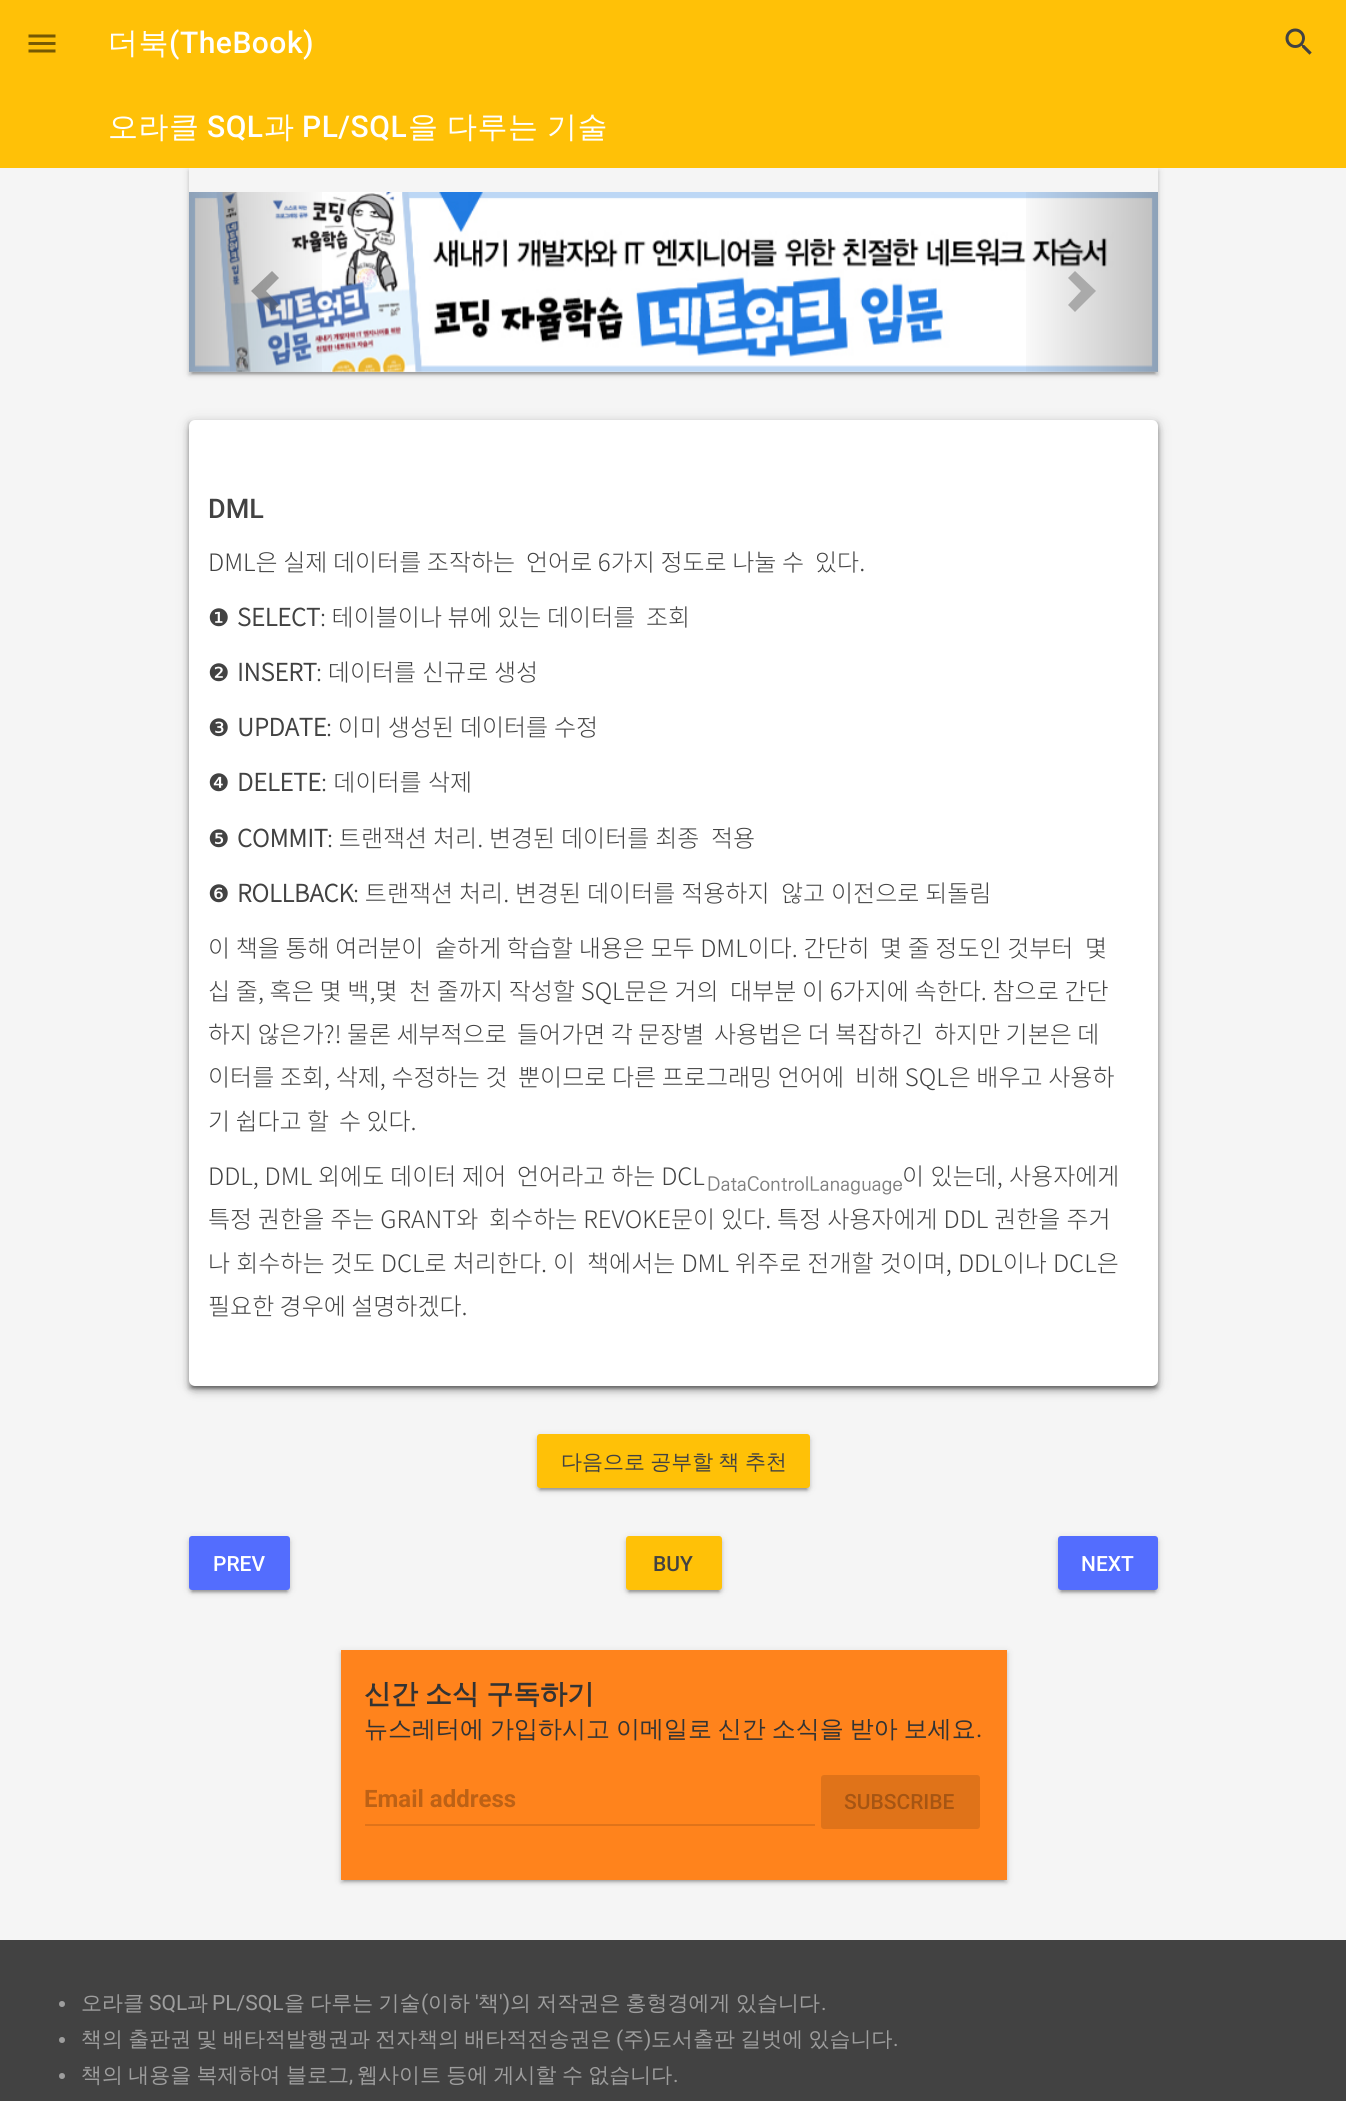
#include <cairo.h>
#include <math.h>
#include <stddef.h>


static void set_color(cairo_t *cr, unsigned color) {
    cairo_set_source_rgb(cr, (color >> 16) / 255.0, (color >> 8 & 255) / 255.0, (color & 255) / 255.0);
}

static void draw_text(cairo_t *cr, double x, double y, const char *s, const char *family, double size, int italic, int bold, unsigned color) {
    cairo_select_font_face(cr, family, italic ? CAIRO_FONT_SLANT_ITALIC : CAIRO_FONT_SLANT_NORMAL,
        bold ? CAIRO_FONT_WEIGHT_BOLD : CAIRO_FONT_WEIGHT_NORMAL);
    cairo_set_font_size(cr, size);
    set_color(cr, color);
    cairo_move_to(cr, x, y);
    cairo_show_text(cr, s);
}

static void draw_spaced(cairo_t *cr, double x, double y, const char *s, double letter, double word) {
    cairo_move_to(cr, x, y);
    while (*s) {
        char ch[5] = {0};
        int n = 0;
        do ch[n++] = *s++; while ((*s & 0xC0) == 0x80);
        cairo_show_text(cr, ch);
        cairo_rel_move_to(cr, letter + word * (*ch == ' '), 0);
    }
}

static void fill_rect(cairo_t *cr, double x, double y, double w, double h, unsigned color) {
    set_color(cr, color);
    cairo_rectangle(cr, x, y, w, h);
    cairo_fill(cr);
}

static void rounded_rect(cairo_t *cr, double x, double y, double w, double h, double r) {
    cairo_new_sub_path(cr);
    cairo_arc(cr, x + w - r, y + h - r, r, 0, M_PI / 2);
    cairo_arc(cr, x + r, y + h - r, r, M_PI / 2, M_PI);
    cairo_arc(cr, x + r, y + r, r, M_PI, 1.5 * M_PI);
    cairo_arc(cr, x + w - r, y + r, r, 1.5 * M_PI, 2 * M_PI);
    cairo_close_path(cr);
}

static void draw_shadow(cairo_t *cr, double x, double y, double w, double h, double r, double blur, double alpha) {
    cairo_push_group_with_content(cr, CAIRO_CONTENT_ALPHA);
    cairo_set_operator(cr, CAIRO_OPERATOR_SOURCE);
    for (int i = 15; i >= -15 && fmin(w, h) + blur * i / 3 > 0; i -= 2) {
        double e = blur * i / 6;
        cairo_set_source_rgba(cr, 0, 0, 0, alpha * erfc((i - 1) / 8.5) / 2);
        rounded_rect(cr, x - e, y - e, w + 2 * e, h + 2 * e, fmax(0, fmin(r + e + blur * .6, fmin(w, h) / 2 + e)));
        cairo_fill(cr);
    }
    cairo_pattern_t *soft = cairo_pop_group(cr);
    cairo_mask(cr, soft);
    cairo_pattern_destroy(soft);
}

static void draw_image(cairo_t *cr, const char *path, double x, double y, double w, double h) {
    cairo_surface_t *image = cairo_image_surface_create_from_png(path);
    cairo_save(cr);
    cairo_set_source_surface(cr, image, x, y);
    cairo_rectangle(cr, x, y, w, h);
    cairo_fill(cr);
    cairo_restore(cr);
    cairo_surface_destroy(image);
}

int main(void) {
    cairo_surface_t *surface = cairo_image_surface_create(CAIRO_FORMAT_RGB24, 1346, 2101);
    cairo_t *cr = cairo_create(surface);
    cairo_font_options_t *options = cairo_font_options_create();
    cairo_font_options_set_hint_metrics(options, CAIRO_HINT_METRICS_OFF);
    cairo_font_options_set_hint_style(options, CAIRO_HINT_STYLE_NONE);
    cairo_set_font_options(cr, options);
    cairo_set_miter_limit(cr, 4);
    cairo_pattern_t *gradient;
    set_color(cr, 0xF5F5F5);
    cairo_paint(cr);
    cairo_save(cr);
    cairo_set_fill_rule(cr, CAIRO_FILL_RULE_EVEN_ODD);
    cairo_new_path(cr);
    cairo_move_to(cr, 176, 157);
    cairo_line_to(cr, 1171, 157);
    cairo_line_to(cr, 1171, 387);
    cairo_line_to(cr, 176, 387);
    cairo_close_path(cr);
    cairo_move_to(cr, 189, 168);
    cairo_line_to(cr, 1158, 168);
    cairo_line_to(cr, 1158, 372);
    cairo_line_to(cr, 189, 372);
    cairo_close_path(cr);
    cairo_clip(cr);
    set_color(cr, 0x000000);
    draw_shadow(cr, 189, 170, 969, 204, 0, 4, 0.12);
    cairo_restore(cr);
    cairo_save(cr);
    cairo_set_fill_rule(cr, CAIRO_FILL_RULE_EVEN_ODD);
    cairo_new_path(cr);
    cairo_move_to(cr, 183, 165);
    cairo_line_to(cr, 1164, 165);
    cairo_line_to(cr, 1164, 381);
    cairo_line_to(cr, 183, 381);
    cairo_close_path(cr);
    cairo_move_to(cr, 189, 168);
    cairo_line_to(cr, 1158, 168);
    cairo_line_to(cr, 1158, 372);
    cairo_line_to(cr, 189, 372);
    cairo_close_path(cr);
    cairo_clip(cr);
    set_color(cr, 0x000000);
    draw_shadow(cr, 189, 171, 969, 204, 0, 1.5, 0.14);
    cairo_restore(cr);
    fill_rect(cr, 0, 0, 1346, 168, 0xFFC107);
    draw_image(cr, "assets/img1.png", 28, 34, 28, 19);
    cairo_select_font_face(cr, "WenQuanYi Zen Hei Medium", CAIRO_FONT_SLANT_NORMAL, CAIRO_FONT_WEIGHT_NORMAL);
    cairo_set_font_size(cr, 30);
    set_color(cr, 0xFFFFFF);
    draw_spaced(cr, 108, 53, "더북", 0.5, 0);
    cairo_select_font_face(cr, "Roboto Medium", CAIRO_FONT_SLANT_NORMAL, CAIRO_FONT_WEIGHT_NORMAL);
    draw_spaced(cr, 169, 53, "(TheBook)", 0.5, 0);
    draw_image(cr, "assets/img2.png", 1285, 28, 27, 27);
    cairo_select_font_face(cr, "WenQuanYi Zen Hei Medium", CAIRO_FONT_SLANT_NORMAL, CAIRO_FONT_WEIGHT_NORMAL);
    draw_spaced(cr, 108, 137, "오라클", 0.5, 0);
    cairo_select_font_face(cr, "Roboto Medium", CAIRO_FONT_SLANT_NORMAL, CAIRO_FONT_WEIGHT_NORMAL);
    draw_spaced(cr, 207, 137, "SQL", 0.5, 0);
    cairo_select_font_face(cr, "WenQuanYi Zen Hei Medium", CAIRO_FONT_SLANT_NORMAL, CAIRO_FONT_WEIGHT_NORMAL);
    draw_spaced(cr, 264, 137, "과", 0.5, 0);
    cairo_select_font_face(cr, "Roboto Medium", CAIRO_FONT_SLANT_NORMAL, CAIRO_FONT_WEIGHT_NORMAL);
    draw_spaced(cr, 302, 137, "PL/SQL", 0.5, 0);
    cairo_select_font_face(cr, "WenQuanYi Zen Hei Medium", CAIRO_FONT_SLANT_NORMAL, CAIRO_FONT_WEIGHT_NORMAL);
    draw_spaced(cr, 408, 137, "을 다루는 기술", 0.5, -1);
    cairo_save(cr);
    cairo_rectangle(cr, 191, 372, 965, 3);
    cairo_clip(cr);
    set_color(cr, 0x000000);
    draw_shadow(cr, 192, 176, 963, 198, 0, 1, 0.2);
    cairo_restore(cr);
    draw_image(cr, "assets/img3.png", 189, 192, 969, 180);
    gradient = cairo_pattern_create_linear(189, 282, 335, 282);
    cairo_pattern_add_color_stop_rgba(gradient, 0, 0, 0, 0, 0.25);
    cairo_pattern_add_color_stop_rgba(gradient, 1, 0, 0, 0, 0);
    cairo_set_source(cr, gradient);
    cairo_pattern_destroy(gradient);
    cairo_rectangle(cr, 189, 192, 133, 180);
    cairo_fill(cr);
    cairo_set_source_rgba(cr, 0.333, 0.333, 0.333, 0.5);
    cairo_new_path(cr);
    cairo_move_to(cr, 279, 278);
    cairo_line_to(cr, 266, 291);
    cairo_line_to(cr, 279, 305);
    cairo_line_to(cr, 272, 312);
    cairo_line_to(cr, 251, 291);
    cairo_line_to(cr, 272, 271);
    cairo_close_path(cr);
    cairo_fill(cr);
    gradient = cairo_pattern_create_linear(1013, 282, 1158, 282);
    cairo_pattern_add_color_stop_rgba(gradient, 0, 0, 0, 0, 0);
    cairo_pattern_add_color_stop_rgba(gradient, 1, 0, 0, 0, 0.25);
    cairo_set_source(cr, gradient);
    cairo_pattern_destroy(gradient);
    cairo_rectangle(cr, 1026, 192, 132, 180);
    cairo_fill(cr);
    set_color(cr, 0xAAAAAA);
    cairo_new_path(cr);
    cairo_move_to(cr, 1096, 291);
    cairo_line_to(cr, 1075, 312);
    cairo_line_to(cr, 1068, 305);
    cairo_line_to(cr, 1081, 291);
    cairo_line_to(cr, 1068, 278);
    cairo_line_to(cr, 1075, 271);
    cairo_close_path(cr);
    cairo_fill(cr);
    set_color(cr, 0x000000);
    draw_shadow(cr, 189, 422, 969, 966, 0, 4, 0.12);
    draw_shadow(cr, 192, 428, 963, 960, 0, 1, 0.2);
    draw_shadow(cr, 189, 423, 969, 966, 0, 1.5, 0.14);
    draw_shadow(cr, 191, 425, 966, 963, 5, 3, 0.2);
    draw_shadow(cr, 189, 422, 969, 966, 6, 7.5, 0.12);
    draw_shadow(cr, 189, 426, 969, 966, 6, 4, 0.14);
    set_color(cr, 0xFFFFFF);
    rounded_rect(cr, 189, 420, 969, 966, 6);
    cairo_fill(cr);
    draw_text(cr, 208, 518, "DML", "Roboto Medium", 27, 0, 0, 0x424242);
    cairo_select_font_face(cr, "Noto Sans KR Light", CAIRO_FONT_SLANT_NORMAL, CAIRO_FONT_WEIGHT_NORMAL);
    cairo_set_font_size(cr, 24);
    draw_spaced(cr, 208, 571, "DML은 실제 데이터를 조작하는", 0, 0.25);
    draw_spaced(cr, 526, 571, "언어로 6가지 정도로 나눌 수", 0, 0.25);
    draw_spaced(cr, 815, 571, "있다.", 0, 0.25);
    draw_text(cr, 208, 626, "❶", "DejaVu Sans", 24, 0, 0, 0x424242);
    draw_text(cr, 237, 626, "SELECT", "Noto Sans KR", 24, 0, 1, 0x424242);
    cairo_select_font_face(cr, "Noto Sans KR Light", CAIRO_FONT_SLANT_NORMAL, CAIRO_FONT_WEIGHT_NORMAL);
    draw_spaced(cr, 320, 626, ": 테이블이나 뷰에 있는 데이터를", 0, 0.25);
    draw_spaced(cr, 646, 626, "조회", 0, 0.25);
    draw_text(cr, 208, 681, "❷", "DejaVu Sans", 24, 0, 0, 0x424242);
    draw_text(cr, 237, 681, "INSERT", "Noto Sans KR", 24, 0, 1, 0x424242);
    cairo_select_font_face(cr, "Noto Sans KR Light", CAIRO_FONT_SLANT_NORMAL, CAIRO_FONT_WEIGHT_NORMAL);
    draw_spaced(cr, 316, 681, ": 데이터를 신규로 생성", 0, 0.5);
    draw_text(cr, 208, 736, "❸", "DejaVu Sans", 24, 0, 0, 0x424242);
    draw_text(cr, 237, 736, "UPDATE", "Noto Sans KR", 24, 0, 1, 0x424242);
    cairo_select_font_face(cr, "Noto Sans KR Light", CAIRO_FONT_SLANT_NORMAL, CAIRO_FONT_WEIGHT_NORMAL);
    draw_spaced(cr, 326, 736, ": 이미 생성된 데이터를 수정", 0, 0.5);
    draw_text(cr, 208, 791, "❹", "DejaVu Sans", 24, 0, 0, 0x424242);
    draw_text(cr, 237, 791, "DELETE", "Noto Sans KR", 24, 0, 1, 0x424242);
    cairo_select_font_face(cr, "Noto Sans KR Light", CAIRO_FONT_SLANT_NORMAL, CAIRO_FONT_WEIGHT_NORMAL);
    draw_spaced(cr, 321, 791, ": 데이터를 삭제", 0, 1);
    draw_text(cr, 208, 847, "❺", "DejaVu Sans", 24, 0, 0, 0x424242);
    draw_text(cr, 237, 847, "COMMIT", "Noto Sans KR", 24, 0, 1, 0x424242);
    cairo_select_font_face(cr, "Noto Sans KR Light", CAIRO_FONT_SLANT_NORMAL, CAIRO_FONT_WEIGHT_NORMAL);
    draw_spaced(cr, 327, 847, ": 트랜잭션 처리. 변경된 데이터를 최종", 0, 0.5);
    draw_spaced(cr, 711, 847, "적용", 0, 0.5);
    draw_text(cr, 208, 902, "❻", "DejaVu Sans", 24, 0, 0, 0x424242);
    draw_text(cr, 237, 902, "ROLLBACK", "Noto Sans KR", 24, 0, 1, 0x424242);
    cairo_select_font_face(cr, "Noto Sans KR Light", CAIRO_FONT_SLANT_NORMAL, CAIRO_FONT_WEIGHT_NORMAL);
    draw_spaced(cr, 353, 902, ": 트랜잭션 처리. 변경된 데이터를 적용하지", 0, 0.5);
    draw_spaced(cr, 781, 902, "않고 이전으로 되돌림", 0, 0.5);
    draw_spaced(cr, 208, 957, "이 책을 통해 여러분이", 0, 0.25);
    draw_spaced(cr, 435, 957, "숱하게 학습할 내용은 모두 DML이다. 간단히", 0, 0.25);
    draw_spaced(cr, 880, 957, "몇 줄 정도인 것부터", 0, 0.25);
    draw_spaced(cr, 1085, 957, "몇", 0, 0.25);
    draw_spaced(cr, 208, 1000, "십 줄, 혹은 몇 백,몇", 0, 0.4);
    draw_spaced(cr, 409, 1000, "천 줄까지 작성할 SQL문은 거의", 0, 0.4);
    draw_spaced(cr, 730, 1000, "대부분 이 6가지에 속한다. 참으로 간단", 0, 0.4);
    draw_text(cr, 208, 1043, "하지 않은가?! 물론 세부적으로", "Noto Sans KR Light", 24, 0, 0, 0x424242);
    draw_text(cr, 517, 1043, "들어가면 각 문장별", "Noto Sans KR Light", 24, 0, 0, 0x424242);
    draw_text(cr, 714, 1043, "사용법은 더 복잡하긴", "Noto Sans KR Light", 24, 0, 0, 0x424242);
    draw_text(cr, 934, 1043, "하지만 기본은 데", "Noto Sans KR Light", 24, 0, 0, 0x424242);
    draw_spaced(cr, 208, 1086, "이터를 조회, 삭제, 수정하는 것", 0, 0.3);
    draw_spaced(cr, 518, 1086, "뿐이므로 다른 프로그래밍 언어에", 0, 0.3);
    draw_spaced(cr, 855, 1086, "비해 SQL은 배우고 사용하", 0, 0.3);
    draw_text(cr, 208, 1130, "기 쉽다고 할", "Noto Sans KR Light", 24, 0, 0, 0x424242);
    draw_text(cr, 339, 1130, "수 있다.", "Noto Sans KR Light", 24, 0, 0, 0x424242);
    draw_spaced(cr, 208, 1185, "DDL, DML 외에도 데이터 제어", 0, 0.5);
    draw_spaced(cr, 517, 1185, "언어라고 하는 DCL", 0, 0.5);
    draw_text(cr, 707, 1190, "DataControlLanaguage", "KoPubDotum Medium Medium", 19.25, 0, 0, 0x808080);
    cairo_select_font_face(cr, "Noto Sans KR Light", CAIRO_FONT_SLANT_NORMAL, CAIRO_FONT_WEIGHT_NORMAL);
    cairo_set_font_size(cr, 24);
    set_color(cr, 0x424242);
    draw_spaced(cr, 902, 1185, "이 있는데, 사용자에게", 0, 1);
    draw_spaced(cr, 208, 1228, "특정 권한을 주는 GRANT와", 0, 0.6);
    draw_spaced(cr, 489, 1228, "회수하는 REVOKE문이 있다. 특정 사용자에게 DDL 권한을 주거", 0, 0.6);
    draw_spaced(cr, 208, 1272, "나 회수하는 것도 DCL로 처리한다. 이", 0, 0.75);
    draw_spaced(cr, 587, 1272, "책에서는 DML 위주로 전개할 것이며, DDL이나 DCL은", 0, 0.75);
    draw_text(cr, 208, 1315, "필요한 경우에 설명하겠다.", "Noto Sans KR Light", 24, 0, 0, 0x424242);
    set_color(cr, 0x000000);
    draw_shadow(cr, 537, 1436, 273, 54, 3, 4, 0.12);
    draw_shadow(cr, 540, 1442, 267, 48, 0, 1, 0.2);
    draw_shadow(cr, 537, 1437, 273, 54, 3, 1.5, 0.14);
    set_color(cr, 0xFFC107);
    rounded_rect(cr, 537, 1434, 273, 54, 3);
    cairo_fill(cr);
    cairo_select_font_face(cr, "WenQuanYi Zen Hei Medium", CAIRO_FONT_SLANT_NORMAL, CAIRO_FONT_WEIGHT_NORMAL);
    cairo_set_font_size(cr, 21);
    set_color(cr, 0x424242);
    draw_spaced(cr, 561, 1469, "다음으로 공부할 책 추천", 0, -1);
    set_color(cr, 0x000000);
    draw_shadow(cr, 189, 1538, 101, 54, 3, 4, 0.12);
    draw_shadow(cr, 192, 1544, 95, 48, 0, 1, 0.2);
    draw_shadow(cr, 189, 1539, 101, 54, 3, 1.5, 0.14);
    set_color(cr, 0x536DFE);
    rounded_rect(cr, 189, 1536, 101, 54, 3);
    cairo_fill(cr);
    draw_text(cr, 213, 1571, "PREV", "Roboto Medium", 21, 0, 0, 0xFFFFFF);
    set_color(cr, 0x000000);
    draw_shadow(cr, 626, 1538, 96, 54, 3, 4, 0.12);
    draw_shadow(cr, 629, 1544, 90, 48, 0, 1, 0.2);
    draw_shadow(cr, 626, 1539, 96, 54, 3, 1.5, 0.14);
    set_color(cr, 0xFFC107);
    rounded_rect(cr, 626, 1536, 96, 54, 3);
    cairo_fill(cr);
    draw_text(cr, 653, 1571, "BUY", "Roboto Medium", 21, 0, 0, 0x424242);
    set_color(cr, 0x000000);
    draw_shadow(cr, 1058, 1538, 100, 54, 3, 4, 0.12);
    draw_shadow(cr, 1061, 1544, 94, 48, 0, 1, 0.2);
    draw_shadow(cr, 1058, 1539, 100, 54, 3, 1.5, 0.14);
    set_color(cr, 0x536DFE);
    rounded_rect(cr, 1058, 1536, 100, 54, 3);
    cairo_fill(cr);
    draw_text(cr, 1081, 1571, "NEXT", "Roboto Medium", 21, 0, 0, 0xFFFFFF);
    set_color(cr, 0x000000);
    draw_shadow(cr, 341, 1652, 666, 229, 0, 4, 0.12);
    draw_shadow(cr, 344, 1658, 660, 223, 0, 1, 0.2);
    draw_shadow(cr, 341, 1653, 666, 230, 0, 1.5, 0.14);
    fill_rect(cr, 341, 1650, 666, 230, 0xFF831C);
    cairo_select_font_face(cr, "WenQuanYi Zen Hei", CAIRO_FONT_SLANT_NORMAL, CAIRO_FONT_WEIGHT_BOLD);
    cairo_set_font_size(cr, 27);
    set_color(cr, 0x333333);
    draw_spaced(cr, 364, 1703, "신간 소식 구독하기", 0, -1);
    cairo_select_font_face(cr, "WenQuanYi Zen Hei Medium", CAIRO_FONT_SLANT_NORMAL, CAIRO_FONT_WEIGHT_NORMAL);
    cairo_set_font_size(cr, 24);
    draw_spaced(cr, 364, 1737, "뉴스레터에 가입하시고 이메일로 신간 소식을 받아 보세요", 0, -1.25);
    draw_text(cr, 976, 1737, ".", "Roboto", 24, 0, 0, 0x333333);
    draw_text(cr, 364, 1807, "Email address", "Roboto", 24, 0, 1, 0xBD6115);
    fill_rect(cr, 365, 1824, 450, 2, 0xE07319);
    rounded_rect(cr, 821, 1775, 159, 54, 3);
    cairo_fill(cr);
    draw_text(cr, 844, 1809, "SUBSCRIBE", "Roboto Medium", 21, 0, 0, 0xA65513);
    fill_rect(cr, 0, 1940, 1346, 161, 0x424242);
    set_color(cr, 0x9E9E9E);
    cairo_new_path(cr);
    cairo_arc(cr, 62, 2004, 3, 0, 2 * M_PI);
    cairo_fill(cr);
    draw_text(cr, 81, 2010, "오라클", "WenQuanYi Zen Hei Medium", 21, 0, 0, 0x9E9E9E);
    draw_text(cr, 149, 2010, "SQL", "Roboto", 21, 0, 0, 0x9E9E9E);
    draw_text(cr, 187, 2010, "과", "WenQuanYi Zen Hei Medium", 21, 0, 0, 0x9E9E9E);
    draw_text(cr, 212, 2010, "PL/SQL", "Roboto", 21, 0, 0, 0x9E9E9E);
    cairo_select_font_face(cr, "WenQuanYi Zen Hei Medium", CAIRO_FONT_SLANT_NORMAL, CAIRO_FONT_WEIGHT_NORMAL);
    draw_spaced(cr, 284, 2010, "을 다루는 기술", 0, -1);
    draw_text(cr, 421, 2010, "(", "Roboto", 21, 0, 0, 0x9E9E9E);
    draw_text(cr, 428, 2010, "이하", "WenQuanYi Zen Hei Medium", 21, 0, 0, 0x9E9E9E);
    draw_text(cr, 475, 2010, "'", "Roboto", 21, 0, 0, 0x9E9E9E);
    draw_text(cr, 478, 2010, "책", "WenQuanYi Zen Hei Medium", 21, 0, 0, 0x9E9E9E);
    draw_text(cr, 499, 2010, "')", "Roboto", 21, 0, 0, 0x9E9E9E);
    cairo_select_font_face(cr, "WenQuanYi Zen Hei Medium", CAIRO_FONT_SLANT_NORMAL, CAIRO_FONT_WEIGHT_NORMAL);
    draw_spaced(cr, 510, 2010, "의 저작권은 홍형경에게 있습니다", 0, -1);
    draw_text(cr, 821, 2010, ".", "Roboto", 21, 0, 0, 0x9E9E9E);
    cairo_new_path(cr);
    cairo_arc(cr, 62, 2040, 3, 0, 2 * M_PI);
    cairo_fill(cr);
    cairo_select_font_face(cr, "WenQuanYi Zen Hei Medium", CAIRO_FONT_SLANT_NORMAL, CAIRO_FONT_WEIGHT_NORMAL);
    draw_spaced(cr, 81, 2046, "책의 출판권 및 배타적발행권과 전자책의 배타적전송권은", 0, -1);
    draw_text(cr, 616, 2046, "(", "Roboto", 21, 0, 0, 0x9E9E9E);
    draw_text(cr, 623, 2046, "주", "WenQuanYi Zen Hei Medium", 21, 0, 0, 0x9E9E9E);
    draw_text(cr, 644, 2046, ")", "Roboto", 21, 0, 0, 0x9E9E9E);
    cairo_select_font_face(cr, "WenQuanYi Zen Hei Medium", CAIRO_FONT_SLANT_NORMAL, CAIRO_FONT_WEIGHT_NORMAL);
    draw_spaced(cr, 651, 2046, "도서출판 길벗에 있습니다", 0, -1);
    draw_text(cr, 893, 2046, ".", "Roboto", 21, 0, 0, 0x9E9E9E);
    cairo_new_path(cr);
    cairo_arc(cr, 62, 2076, 3, 0, 2 * M_PI);
    cairo_fill(cr);
    cairo_select_font_face(cr, "WenQuanYi Zen Hei Medium", CAIRO_FONT_SLANT_NORMAL, CAIRO_FONT_WEIGHT_NORMAL);
    draw_spaced(cr, 81, 2082, "책의 내용을 복제하여 블로그", 0, -1);
    draw_spaced(cr, 357, 2082, "웹사이트 등에 게시할 수 없습니다", 0, -1);
    draw_text(cr, 349, 2082, ",", "Roboto", 21, 0, 0, 0x9E9E9E);
    draw_text(cr, 673, 2082, ".", "Roboto", 21, 0, 0, 0x9E9E9E);
    cairo_surface_write_to_png(surface, "output.png");
    cairo_font_options_destroy(options);
    cairo_destroy(cr);
    cairo_surface_destroy(surface);
    return 0;
}
